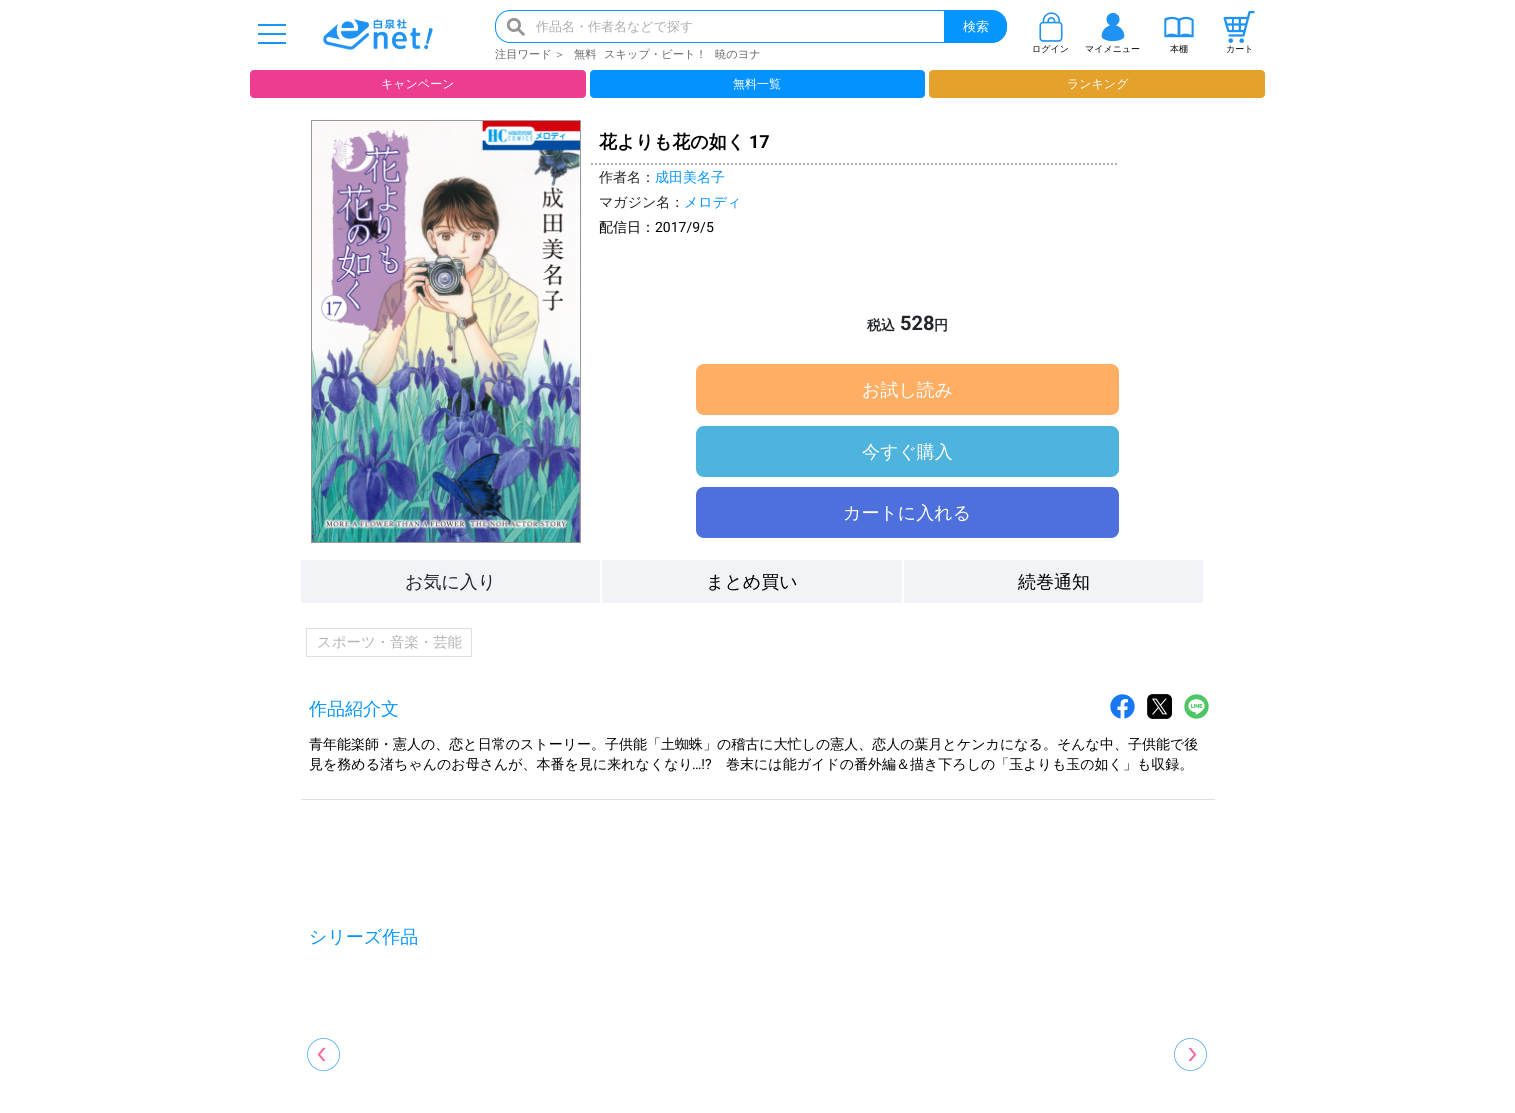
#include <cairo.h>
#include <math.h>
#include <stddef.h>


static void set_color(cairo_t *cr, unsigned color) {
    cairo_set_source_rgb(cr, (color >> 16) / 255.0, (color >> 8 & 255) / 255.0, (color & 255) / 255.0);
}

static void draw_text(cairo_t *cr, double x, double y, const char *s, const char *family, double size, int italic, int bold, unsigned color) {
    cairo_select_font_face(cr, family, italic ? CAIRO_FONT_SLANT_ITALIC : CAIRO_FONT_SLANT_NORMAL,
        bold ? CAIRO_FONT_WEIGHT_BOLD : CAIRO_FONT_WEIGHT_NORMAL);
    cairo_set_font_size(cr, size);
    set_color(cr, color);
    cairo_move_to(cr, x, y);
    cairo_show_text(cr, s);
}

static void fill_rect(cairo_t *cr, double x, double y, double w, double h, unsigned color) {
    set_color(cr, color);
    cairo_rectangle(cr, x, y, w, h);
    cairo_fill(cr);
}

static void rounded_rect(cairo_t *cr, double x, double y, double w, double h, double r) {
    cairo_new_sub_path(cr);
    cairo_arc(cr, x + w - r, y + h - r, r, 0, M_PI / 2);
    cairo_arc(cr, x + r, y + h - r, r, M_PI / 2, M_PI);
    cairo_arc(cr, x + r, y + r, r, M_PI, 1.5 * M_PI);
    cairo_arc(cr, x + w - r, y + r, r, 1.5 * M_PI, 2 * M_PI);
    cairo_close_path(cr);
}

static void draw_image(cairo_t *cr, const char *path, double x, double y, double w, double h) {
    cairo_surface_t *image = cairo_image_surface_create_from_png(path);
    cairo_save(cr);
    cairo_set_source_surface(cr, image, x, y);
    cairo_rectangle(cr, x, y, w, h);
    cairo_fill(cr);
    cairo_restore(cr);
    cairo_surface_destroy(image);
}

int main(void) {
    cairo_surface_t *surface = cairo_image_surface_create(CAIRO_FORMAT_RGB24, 1515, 1113);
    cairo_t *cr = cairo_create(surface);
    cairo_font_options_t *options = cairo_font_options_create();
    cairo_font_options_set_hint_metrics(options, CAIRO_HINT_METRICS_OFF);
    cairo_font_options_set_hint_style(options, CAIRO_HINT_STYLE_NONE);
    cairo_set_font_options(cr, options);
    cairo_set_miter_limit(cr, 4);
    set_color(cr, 0xFFFFFF);
    cairo_paint(cr);
    fill_rect(cr, 258, 24, 28, 2, 0x1F93F4);
    fill_rect(cr, 258, 33, 28, 2, 0x1F93F4);
    fill_rect(cr, 258, 42, 28, 2, 0x1F93F4);
    draw_image(cr, "assets/img1.png", 323, 19, 110, 32);
    draw_image(cr, "assets/img2.png", 506, 17, 19, 19);
    cairo_new_path(cr);
    cairo_move_to(cr, 510, 10.5);
    cairo_line_to(cr, 944.5, 10.5);
    cairo_line_to(cr, 944.5, 42.5);
    cairo_line_to(cr, 510, 42.5);
    cairo_curve_to(cr, 502, 42.5, 495.5, 36, 495.5, 28);
    cairo_line_to(cr, 495.5, 25);
    cairo_curve_to(cr, 495.5, 17, 502, 10.5, 510, 10.5);
    cairo_close_path(cr);
    set_color(cr, 0x0495FF);
    cairo_set_line_width(cr, 1);
    cairo_stroke(cr);
    draw_text(cr, 536, 31, "作品名・作者名などで探す", "WenQuanYi Zen Hei Medium", 13, 0, 0, 0xACADAD);
    set_color(cr, 0x0495FF);
    cairo_new_path(cr);
    cairo_move_to(cr, 945.5, 10.5);
    cairo_line_to(cr, 992, 10.5);
    cairo_curve_to(cr, 1000, 10.5, 1006.5, 17, 1006.5, 25);
    cairo_line_to(cr, 1006.5, 28);
    cairo_curve_to(cr, 1006.5, 36, 1000, 42.5, 992, 42.5);
    cairo_line_to(cr, 945.5, 42.5);
    cairo_close_path(cr);
    cairo_fill_preserve(cr);
    cairo_stroke(cr);
    draw_text(cr, 963, 31, "検索", "WenQuanYi Zen Hei Medium", 13, 0, 0, 0xFFFFFF);
    draw_text(cr, 495, 58, "注目ワード", "WenQuanYi Zen Hei Medium", 11.25, 0, 0, 0x666666);
    draw_text(cr, 554, 58, "＞", "WenQuanYi Zen Hei Medium", 11.25, 0, 0, 0x666666);
    draw_text(cr, 574, 58, "無料", "WenQuanYi Zen Hei Medium", 11.25, 0, 0, 0x666666);
    draw_text(cr, 604, 58, "スキップ・ビート！", "WenQuanYi Zen Hei Medium", 11.25, 0, 0, 0x666666);
    draw_text(cr, 715, 58, "暁のヨナ", "WenQuanYi Zen Hei Medium", 11.25, 0, 0, 0x666666);
    draw_image(cr, "assets/img3.png", 1039, 12, 24, 30);
    draw_text(cr, 1032, 52, "ログイン", "WenQuanYi Zen Hei Medium", 9, 0, 0, 0x000000);
    draw_image(cr, "assets/img4.png", 1101, 12, 24, 30);
    draw_text(cr, 1085, 52, "マイメニュー", "WenQuanYi Zen Hei Medium", 9, 0, 0, 0x000000);
    draw_image(cr, "assets/img5.png", 1164, 16, 30, 22);
    draw_text(cr, 1170, 52, "本棚", "WenQuanYi Zen Hei Medium", 9, 0, 0, 0x000000);
    draw_image(cr, "assets/img6.png", 1223, 11, 32, 32);
    draw_text(cr, 1226, 52, "カート", "WenQuanYi Zen Hei Medium", 9, 0, 0, 0x000000);
    set_color(cr, 0xED3D92);
    rounded_rect(cr, 250.5, 70.5, 335, 27, 3.5);
    cairo_fill_preserve(cr);
    cairo_stroke(cr);
    draw_text(cr, 381, 88, "キャンペーン", "WenQuanYi Zen Hei Medium", 12, 0, 0, 0xFFFFFF);
    set_color(cr, 0x0492FF);
    rounded_rect(cr, 590.5, 70.5, 334, 27, 3.5);
    cairo_fill_preserve(cr);
    cairo_stroke(cr);
    draw_text(cr, 733, 88, "無料一覧", "WenQuanYi Zen Hei Medium", 12, 0, 0, 0xFFFFFF);
    set_color(cr, 0xE4A12C);
    rounded_rect(cr, 929.5, 70.5, 335, 27, 3.5);
    cairo_fill_preserve(cr);
    cairo_stroke(cr);
    draw_text(cr, 1067, 88, "ランキング", "WenQuanYi Zen Hei Medium", 12, 0, 0, 0xFFFFFF);
    cairo_rectangle(cr, 311.5, 120.5, 269, 422);
    set_color(cr, 0x999999);
    cairo_stroke(cr);
    draw_image(cr, "assets/img7.png", 312, 121, 268, 421);
    cairo_new_path(cr);
    cairo_move_to(cr, 591, 164);
    cairo_line_to(cr, 1119, 164);
    set_color(cr, 0xB3B3B3);
    cairo_set_line_width(cr, 2);
    cairo_set_dash(cr, (double[]){2, 2}, 2, 0);
    cairo_stroke(cr);
    draw_text(cr, 599, 148, "花よりも花の如く", "WenQuanYi Zen Hei", 18, 0, 1, 0x000000);
    draw_text(cr, 749, 148, "17", "Roboto", 18, 0, 1, 0x000000);
    draw_text(cr, 599, 182, "作者名：", "WenQuanYi Zen Hei Medium", 14, 0, 0, 0x212529);
    draw_text(cr, 655, 182, "成田美名子", "WenQuanYi Zen Hei Medium", 14, 0, 0, 0x0495FE);
    draw_text(cr, 599, 207, "マガジン名：", "WenQuanYi Zen Hei Medium", 14, 0, 0, 0x212529);
    draw_text(cr, 684, 207, "メロディ", "WenQuanYi Zen Hei Medium", 14, 0, 0, 0x0495FE);
    draw_text(cr, 599, 232, "配信日：", "WenQuanYi Zen Hei Medium", 14, 0, 0, 0x000000);
    draw_text(cr, 655, 232, "2017/9/5", "Roboto", 14, 0, 0, 0x000000);
    draw_text(cr, 867, 330, "税込", "WenQuanYi Zen Hei", 14, 0, 1, 0x212529);
    draw_text(cr, 900, 330, "528", "Roboto", 20, 0, 1, 0x212529);
    draw_text(cr, 934, 330, "円", "WenQuanYi Zen Hei", 14, 0, 1, 0x212529);
    set_color(cr, 0xFFAE64);
    rounded_rect(cr, 697, 365, 421, 49, 7);
    cairo_fill_preserve(cr);
    cairo_set_dash(cr, NULL, 0, 0);
    cairo_stroke(cr);
    draw_text(cr, 862, 396, "お試し読み", "WenQuanYi Zen Hei Medium", 18, 0, 0, 0xFFFFFF);
    set_color(cr, 0x4EB4DD);
    rounded_rect(cr, 697, 427, 421, 49, 7);
    cairo_fill_preserve(cr);
    cairo_stroke(cr);
    draw_text(cr, 862, 458, "今すぐ購入", "WenQuanYi Zen Hei Medium", 18, 0, 0, 0xFFFFFF);
    set_color(cr, 0x4E70DD);
    rounded_rect(cr, 697, 488, 421, 49, 7);
    cairo_fill_preserve(cr);
    cairo_stroke(cr);
    draw_text(cr, 843, 519, "カートに入れる", "WenQuanYi Zen Hei Medium", 18, 0, 0, 0xFFFFFF);
    fill_rect(cr, 301, 560, 299, 43, 0xF1F3F6);
    draw_text(cr, 405, 588, "お気に入り", "WenQuanYi Zen Hei Medium", 18, 0, 0, 0x212529);
    fill_rect(cr, 602, 560, 300, 43, 0xF1F3F6);
    draw_text(cr, 706, 588, "まとめ買い", "WenQuanYi Zen Hei Medium", 18, 0, 0, 0x000000);
    fill_rect(cr, 904, 560, 299, 43, 0xF1F3F6);
    draw_text(cr, 1018, 588, "続巻通知", "WenQuanYi Zen Hei Medium", 18, 0, 0, 0x000000);
    cairo_rectangle(cr, 306.5, 628.5, 165, 28);
    set_color(cr, 0xDFDFDF);
    cairo_set_line_width(cr, 1);
    cairo_stroke(cr);
    draw_text(cr, 317, 647, "スポーツ・音楽・芸能", "WenQuanYi Zen Hei Medium", 14.4, 0, 0, 0xB3B3B3);
    draw_text(cr, 309, 715, "作品紹介文", "WenQuanYi Zen Hei Medium", 18, 0, 0, 0x0495FE);
    draw_image(cr, "assets/img8.png", 1110, 694, 25, 25);
    draw_image(cr, "assets/img9.png", 1147, 694, 25, 25);
    draw_image(cr, "assets/img10.png", 1184, 694, 25, 25);
    draw_text(cr, 309, 749, "青年能楽師・憲人の、恋と日常のストーリー。子供能「土蜘蛛」の稽古に大忙しの憲人、恋人の葉月とケンカになる。そんな中、子供能で後", "WenQuanYi Zen Hei Medium", 14, 0, 0, 0x000000);
    draw_text(cr, 309, 769, "見を務める渚ちゃんのお母さんが、本番を見に来れなくなり", "WenQuanYi Zen Hei Medium", 14, 0, 0, 0x000000);
    draw_text(cr, 692, 769, "…!?", "Roboto", 14, 0, 0, 0x000000);
    draw_text(cr, 726, 769, "巻末には能ガイドの番外編＆描き下ろしの「玉よりも玉の如く」も収録。", "WenQuanYi Zen Hei Medium", 14, 0, 0, 0x000000);
    fill_rect(cr, 301, 799, 914, 1, 0xDFDFDF);
    draw_text(cr, 309, 943, "シリーズ作品", "WenQuanYi Zen Hei Medium", 18, 0, 0, 0x0495FE);
    draw_image(cr, "assets/img11.png", 307, 1038, 33, 33);
    draw_image(cr, "assets/img12.png", 1174, 1038, 33, 33);
    cairo_surface_write_to_png(surface, "output.png");
    cairo_font_options_destroy(options);
    cairo_destroy(cr);
    cairo_surface_destroy(surface);
    return 0;
}
